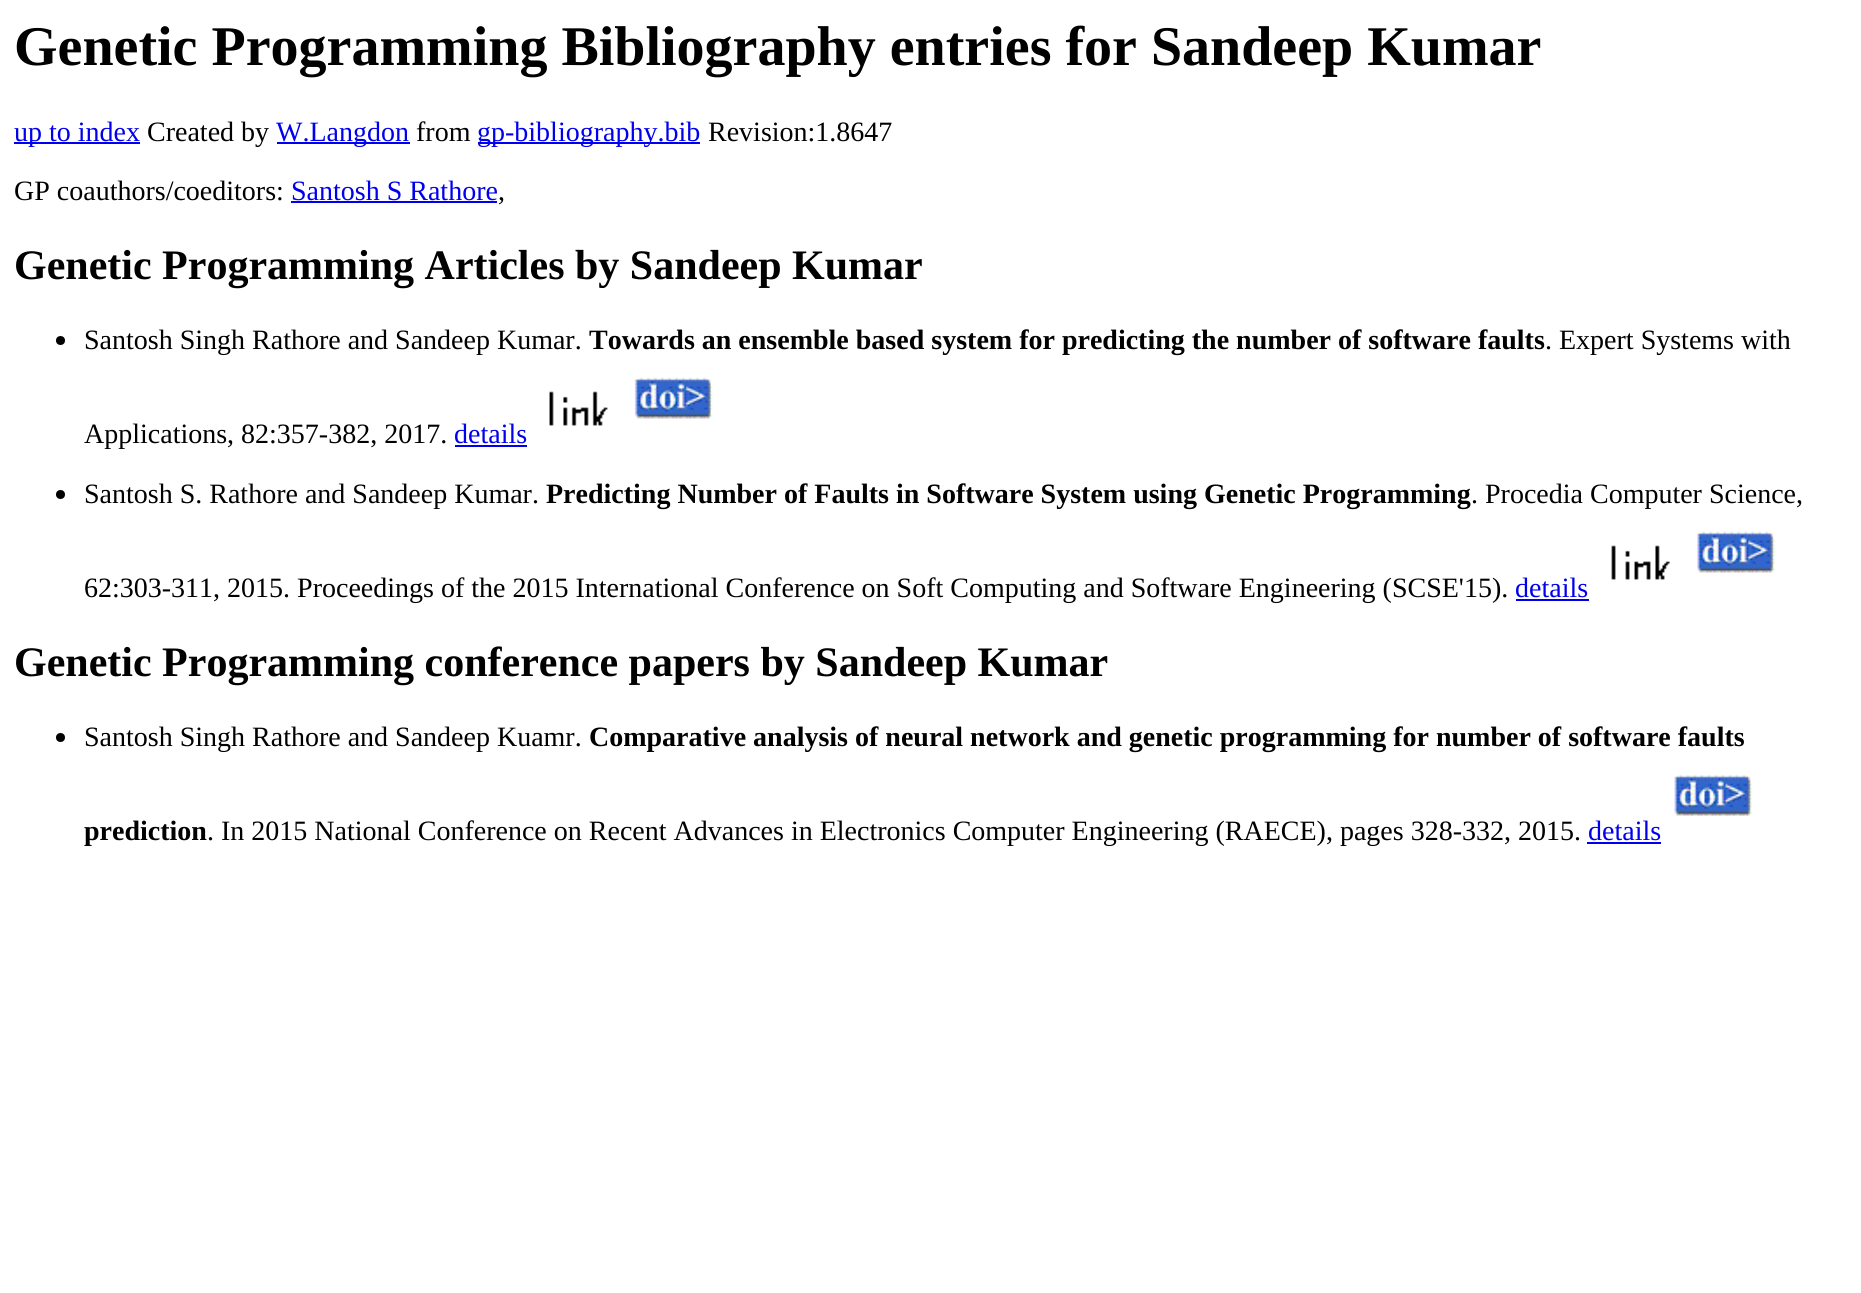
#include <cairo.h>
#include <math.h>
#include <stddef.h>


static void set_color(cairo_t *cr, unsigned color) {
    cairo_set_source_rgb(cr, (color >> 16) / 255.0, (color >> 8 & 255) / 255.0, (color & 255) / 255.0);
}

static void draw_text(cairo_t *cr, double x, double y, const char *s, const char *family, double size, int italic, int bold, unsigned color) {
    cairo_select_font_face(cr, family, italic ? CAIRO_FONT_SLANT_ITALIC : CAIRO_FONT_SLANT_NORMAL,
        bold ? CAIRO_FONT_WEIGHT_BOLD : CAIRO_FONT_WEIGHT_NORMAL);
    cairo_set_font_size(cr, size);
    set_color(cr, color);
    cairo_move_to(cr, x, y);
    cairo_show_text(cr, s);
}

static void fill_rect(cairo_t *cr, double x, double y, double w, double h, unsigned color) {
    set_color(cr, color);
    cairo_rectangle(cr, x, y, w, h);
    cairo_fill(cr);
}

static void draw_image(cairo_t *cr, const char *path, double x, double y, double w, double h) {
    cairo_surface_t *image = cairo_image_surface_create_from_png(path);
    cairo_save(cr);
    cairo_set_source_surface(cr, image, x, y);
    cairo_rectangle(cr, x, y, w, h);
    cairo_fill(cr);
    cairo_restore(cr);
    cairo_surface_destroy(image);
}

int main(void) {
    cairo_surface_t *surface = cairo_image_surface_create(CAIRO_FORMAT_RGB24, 1861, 1293);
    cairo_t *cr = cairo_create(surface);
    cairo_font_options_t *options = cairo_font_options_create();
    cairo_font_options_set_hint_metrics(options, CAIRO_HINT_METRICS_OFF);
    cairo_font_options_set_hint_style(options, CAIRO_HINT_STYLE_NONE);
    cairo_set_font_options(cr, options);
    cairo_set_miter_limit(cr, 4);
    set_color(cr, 0xFFFFFF);
    cairo_paint(cr);
    draw_text(cr, 14, 65, "Genetic Programming Bibliography entries for Sandeep Kumar", "Liberation Serif", 56, 0, 1, 0x000000);
    fill_rect(cr, 14, 142, 126, 2, 0x0000EE);
    draw_text(cr, 14, 141, "up to index", "Liberation Serif", 28, 0, 0, 0x0000EE);
    draw_text(cr, 147, 141, "Created by", "Liberation Serif", 28, 0, 0, 0x000000);
    fill_rect(cr, 277, 142, 133, 2, 0x0000EE);
    draw_text(cr, 276, 141, "W.Langdon", "Liberation Serif", 28, 0, 0, 0x0000EE);
    draw_text(cr, 416, 141, "from", "Liberation Serif", 28, 0, 0, 0x000000);
    fill_rect(cr, 478, 142, 222, 2, 0x0000EE);
    draw_text(cr, 477, 141, "gp-bibliography.bib", "Liberation Serif", 28, 0, 0, 0x0000EE);
    draw_text(cr, 708, 141, "Revision:1.8647", "Liberation Serif", 28, 0, 0, 0x000000);
    draw_text(cr, 14, 200, "GP coauthors/coeditors:", "Liberation Serif", 28, 0, 0, 0x000000);
    draw_text(cr, 291, 200, "Santosh S Rathore", "Liberation Serif", 28, 0, 0, 0x0000EE);
    fill_rect(cr, 291, 201, 206, 2, 0x0000EE);
    draw_text(cr, 498, 200, ",", "Liberation Serif", 28, 0, 0, 0x000000);
    draw_text(cr, 14, 279, "Genetic Programming Articles by Sandeep Kumar", "Liberation Serif", 42, 0, 1, 0x000000);
    cairo_new_path(cr);
    cairo_arc(cr, 60.5, 340.5, 4.5, 0, 2 * M_PI);
    cairo_fill(cr);
    draw_text(cr, 84, 349, "Santosh Singh Rathore and Sandeep Kumar.", "Liberation Serif", 28, 0, 0, 0x000000);
    draw_text(cr, 589, 349, "Towards an ensemble based system for predicting the number of software faults", "Liberation Serif", 28, 0, 1, 0x000000);
    draw_text(cr, 1545, 349, ". Expert Systems with", "Liberation Serif", 28, 0, 0, 0x000000);
    draw_image(cr, "assets/img1.png", 549, 391, 59, 35);
    draw_image(cr, "assets/img2.png", 634, 377, 79, 42);
    draw_text(cr, 84, 443, "Applications, 82:357-382, 2017.", "Liberation Serif", 28, 0, 0, 0x000000);
    draw_text(cr, 454, 443, "details", "Liberation Serif", 28, 0, 0, 0x0000EE);
    fill_rect(cr, 455, 445, 72, 2, 0x0000EE);
    set_color(cr, 0x000000);
    cairo_new_path(cr);
    cairo_arc(cr, 60.5, 494.5, 4.5, 0, 2 * M_PI);
    cairo_fill(cr);
    draw_text(cr, 84, 503, "Santosh S. Rathore and Sandeep Kumar.", "Liberation Serif", 28, 0, 0, 0x000000);
    draw_text(cr, 546, 503, "Predicting Number of Faults in Software System using Genetic Programming", "Liberation Serif", 28, 0, 1, 0x000000);
    draw_text(cr, 1471, 503, ". Procedia Computer Science,", "Liberation Serif", 28, 0, 0, 0x000000);
    draw_image(cr, "assets/img3.png", 1611, 545, 59, 35);
    draw_image(cr, "assets/img4.png", 1697, 531, 78, 42);
    draw_text(cr, 84, 597, "62:303-311, 2015. Proceedings of the 2015 International Conference on Soft Computing and Software Engineering (SCSE'15).", "Liberation Serif", 28, 0, 0, 0x000000);
    draw_text(cr, 1515, 597, "details", "Liberation Serif", 28, 0, 0, 0x0000EE);
    fill_rect(cr, 1516, 599, 73, 2, 0x0000EE);
    draw_text(cr, 14, 676, "Genetic Programming conference papers by Sandeep Kumar", "Liberation Serif", 42, 0, 1, 0x000000);
    cairo_new_path(cr);
    cairo_arc(cr, 60.5, 737.5, 4.5, 0, 2 * M_PI);
    cairo_fill(cr);
    draw_text(cr, 84, 746, "Santosh Singh Rathore and Sandeep Kuamr.", "Liberation Serif", 28, 0, 0, 0x000000);
    draw_text(cr, 589, 746, "Comparative analysis of neural network and genetic programming for number of software faults", "Liberation Serif", 28, 0, 1, 0x000000);
    draw_image(cr, "assets/img5.png", 1674, 775, 79, 41);
    draw_text(cr, 84, 840, "prediction", "Liberation Serif", 28, 0, 1, 0x000000);
    draw_text(cr, 207, 840, ". In 2015 National Conference on Recent Advances in Electronics Computer Engineering (RAECE), pages 328-332, 2015.", "Liberation Serif", 28, 0, 0, 0x000000);
    draw_text(cr, 1588, 840, "details", "Liberation Serif", 28, 0, 0, 0x0000EE);
    fill_rect(cr, 1587, 842, 74, 2, 0x0000EE);
    cairo_surface_write_to_png(surface, "output.png");
    cairo_font_options_destroy(options);
    cairo_destroy(cr);
    cairo_surface_destroy(surface);
    return 0;
}
